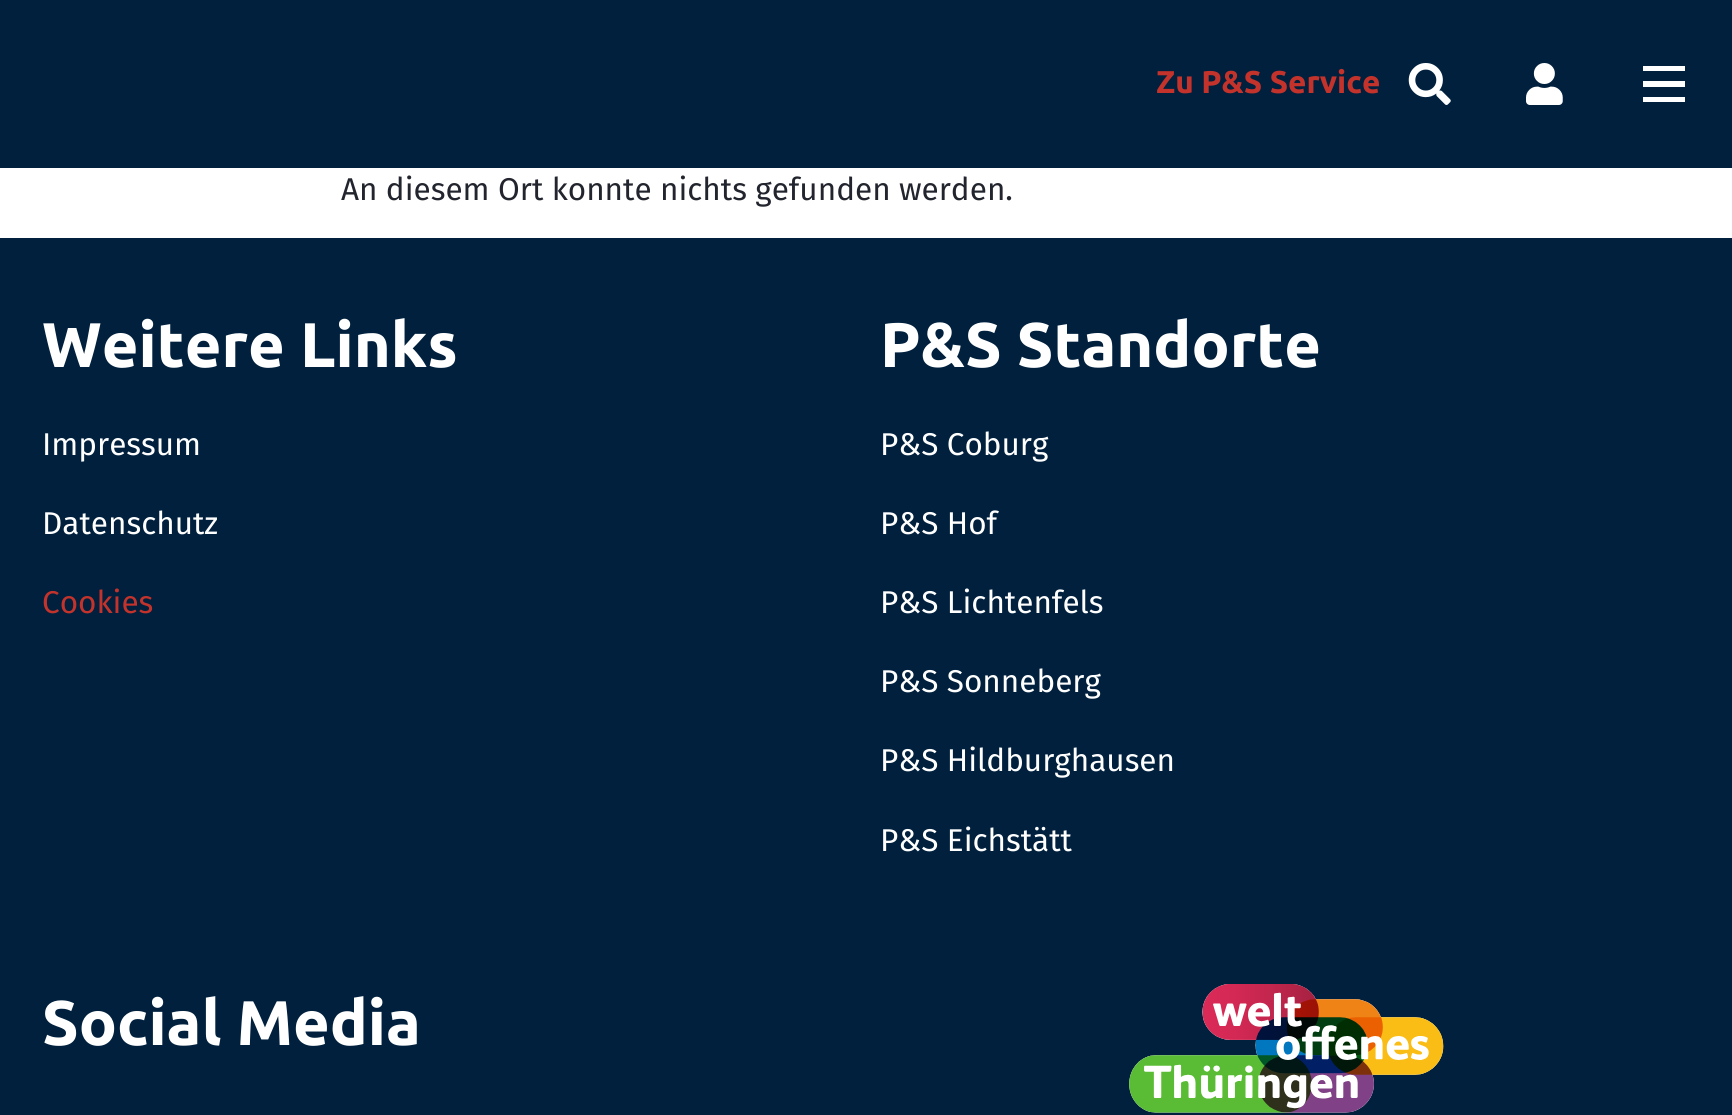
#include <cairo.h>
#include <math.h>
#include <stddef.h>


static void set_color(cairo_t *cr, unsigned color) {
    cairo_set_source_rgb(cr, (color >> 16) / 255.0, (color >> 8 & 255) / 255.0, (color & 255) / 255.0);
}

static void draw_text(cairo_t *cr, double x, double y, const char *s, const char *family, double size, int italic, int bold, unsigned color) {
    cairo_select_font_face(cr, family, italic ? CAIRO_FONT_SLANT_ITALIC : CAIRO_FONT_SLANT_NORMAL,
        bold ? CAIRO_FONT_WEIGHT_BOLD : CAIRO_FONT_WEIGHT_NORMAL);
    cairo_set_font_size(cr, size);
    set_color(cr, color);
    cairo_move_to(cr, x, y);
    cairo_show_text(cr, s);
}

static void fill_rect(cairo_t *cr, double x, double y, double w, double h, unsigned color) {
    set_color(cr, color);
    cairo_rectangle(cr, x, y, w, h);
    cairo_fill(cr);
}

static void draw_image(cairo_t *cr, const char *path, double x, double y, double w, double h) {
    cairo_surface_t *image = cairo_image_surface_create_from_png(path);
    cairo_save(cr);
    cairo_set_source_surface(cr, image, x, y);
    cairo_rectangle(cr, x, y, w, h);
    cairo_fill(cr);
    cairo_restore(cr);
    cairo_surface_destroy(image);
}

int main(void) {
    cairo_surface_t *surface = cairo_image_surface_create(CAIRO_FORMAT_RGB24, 1732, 1115);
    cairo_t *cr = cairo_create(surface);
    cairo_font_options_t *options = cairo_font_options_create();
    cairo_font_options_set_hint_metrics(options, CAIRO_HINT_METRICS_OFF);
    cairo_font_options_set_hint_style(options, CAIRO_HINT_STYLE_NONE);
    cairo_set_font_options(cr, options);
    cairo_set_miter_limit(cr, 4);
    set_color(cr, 0xFFFFFF);
    cairo_paint(cr);
    fill_rect(cr, 0, 0, 1732, 168, 0x00203D);
    draw_text(cr, 1156, 93, "Zu P&S Service", "Ubuntu", 31.5, 0, 1, 0xC3332B);
    draw_image(cr, "assets/img1.png", 1408, 63, 43, 42);
    draw_image(cr, "assets/img2.png", 1526, 63, 37, 42);
    fill_rect(cr, 1643, 66, 42, 5, 0xFFFFFF);
    fill_rect(cr, 1643, 81, 42, 6, 0xFFFFFF);
    fill_rect(cr, 1643, 97, 42, 5, 0xFFFFFF);
    draw_text(cr, 341, 200, "An diesem Ort konnte nichts gefunden werden.", "Fira Sans", 31.5, 0, 0, 0x22242E);
    fill_rect(cr, 0, 238, 1732, 877, 0x00203D);
    draw_text(cr, 42, 367, "Weitere Links", "Ubuntu", 63, 0, 1, 0xFFFFFF);
    draw_text(cr, 42, 455, "Impressum", "Fira Sans", 31.5, 0, 0, 0xFFFFFF);
    draw_text(cr, 42, 534, "Datenschutz", "Fira Sans", 31.5, 0, 0, 0xFFFFFF);
    draw_text(cr, 42, 613, "Cookies", "Fira Sans", 31.5, 0, 0, 0xC3332B);
    draw_text(cr, 880, 367, "P&S Standorte", "Ubuntu", 63, 0, 1, 0xFFFFFF);
    draw_text(cr, 880, 455, "P&S Coburg", "Fira Sans", 31.5, 0, 0, 0xFFFFFF);
    draw_text(cr, 880, 534, "P&S Hof", "Fira Sans", 31.5, 0, 0, 0xFFFFFF);
    draw_text(cr, 880, 613, "P&S Lichtenfels", "Fira Sans", 31.5, 0, 0, 0xFFFFFF);
    draw_text(cr, 880, 692, "P&S Sonneberg", "Fira Sans", 31.5, 0, 0, 0xFFFFFF);
    draw_text(cr, 880, 771, "P&S Hildburghausen", "Fira Sans", 31.5, 0, 0, 0xFFFFFF);
    draw_text(cr, 880, 851, "P&S Eichstätt", "Fira Sans", 31.5, 0, 0, 0xFFFFFF);
    draw_text(cr, 42, 1045, "Social Media", "Ubuntu", 63, 0, 1, 0xFFFFFF);
    draw_image(cr, "assets/img3.png", 1129, 984, 315, 129);
    cairo_surface_write_to_png(surface, "output.png");
    cairo_font_options_destroy(options);
    cairo_destroy(cr);
    cairo_surface_destroy(surface);
    return 0;
}
